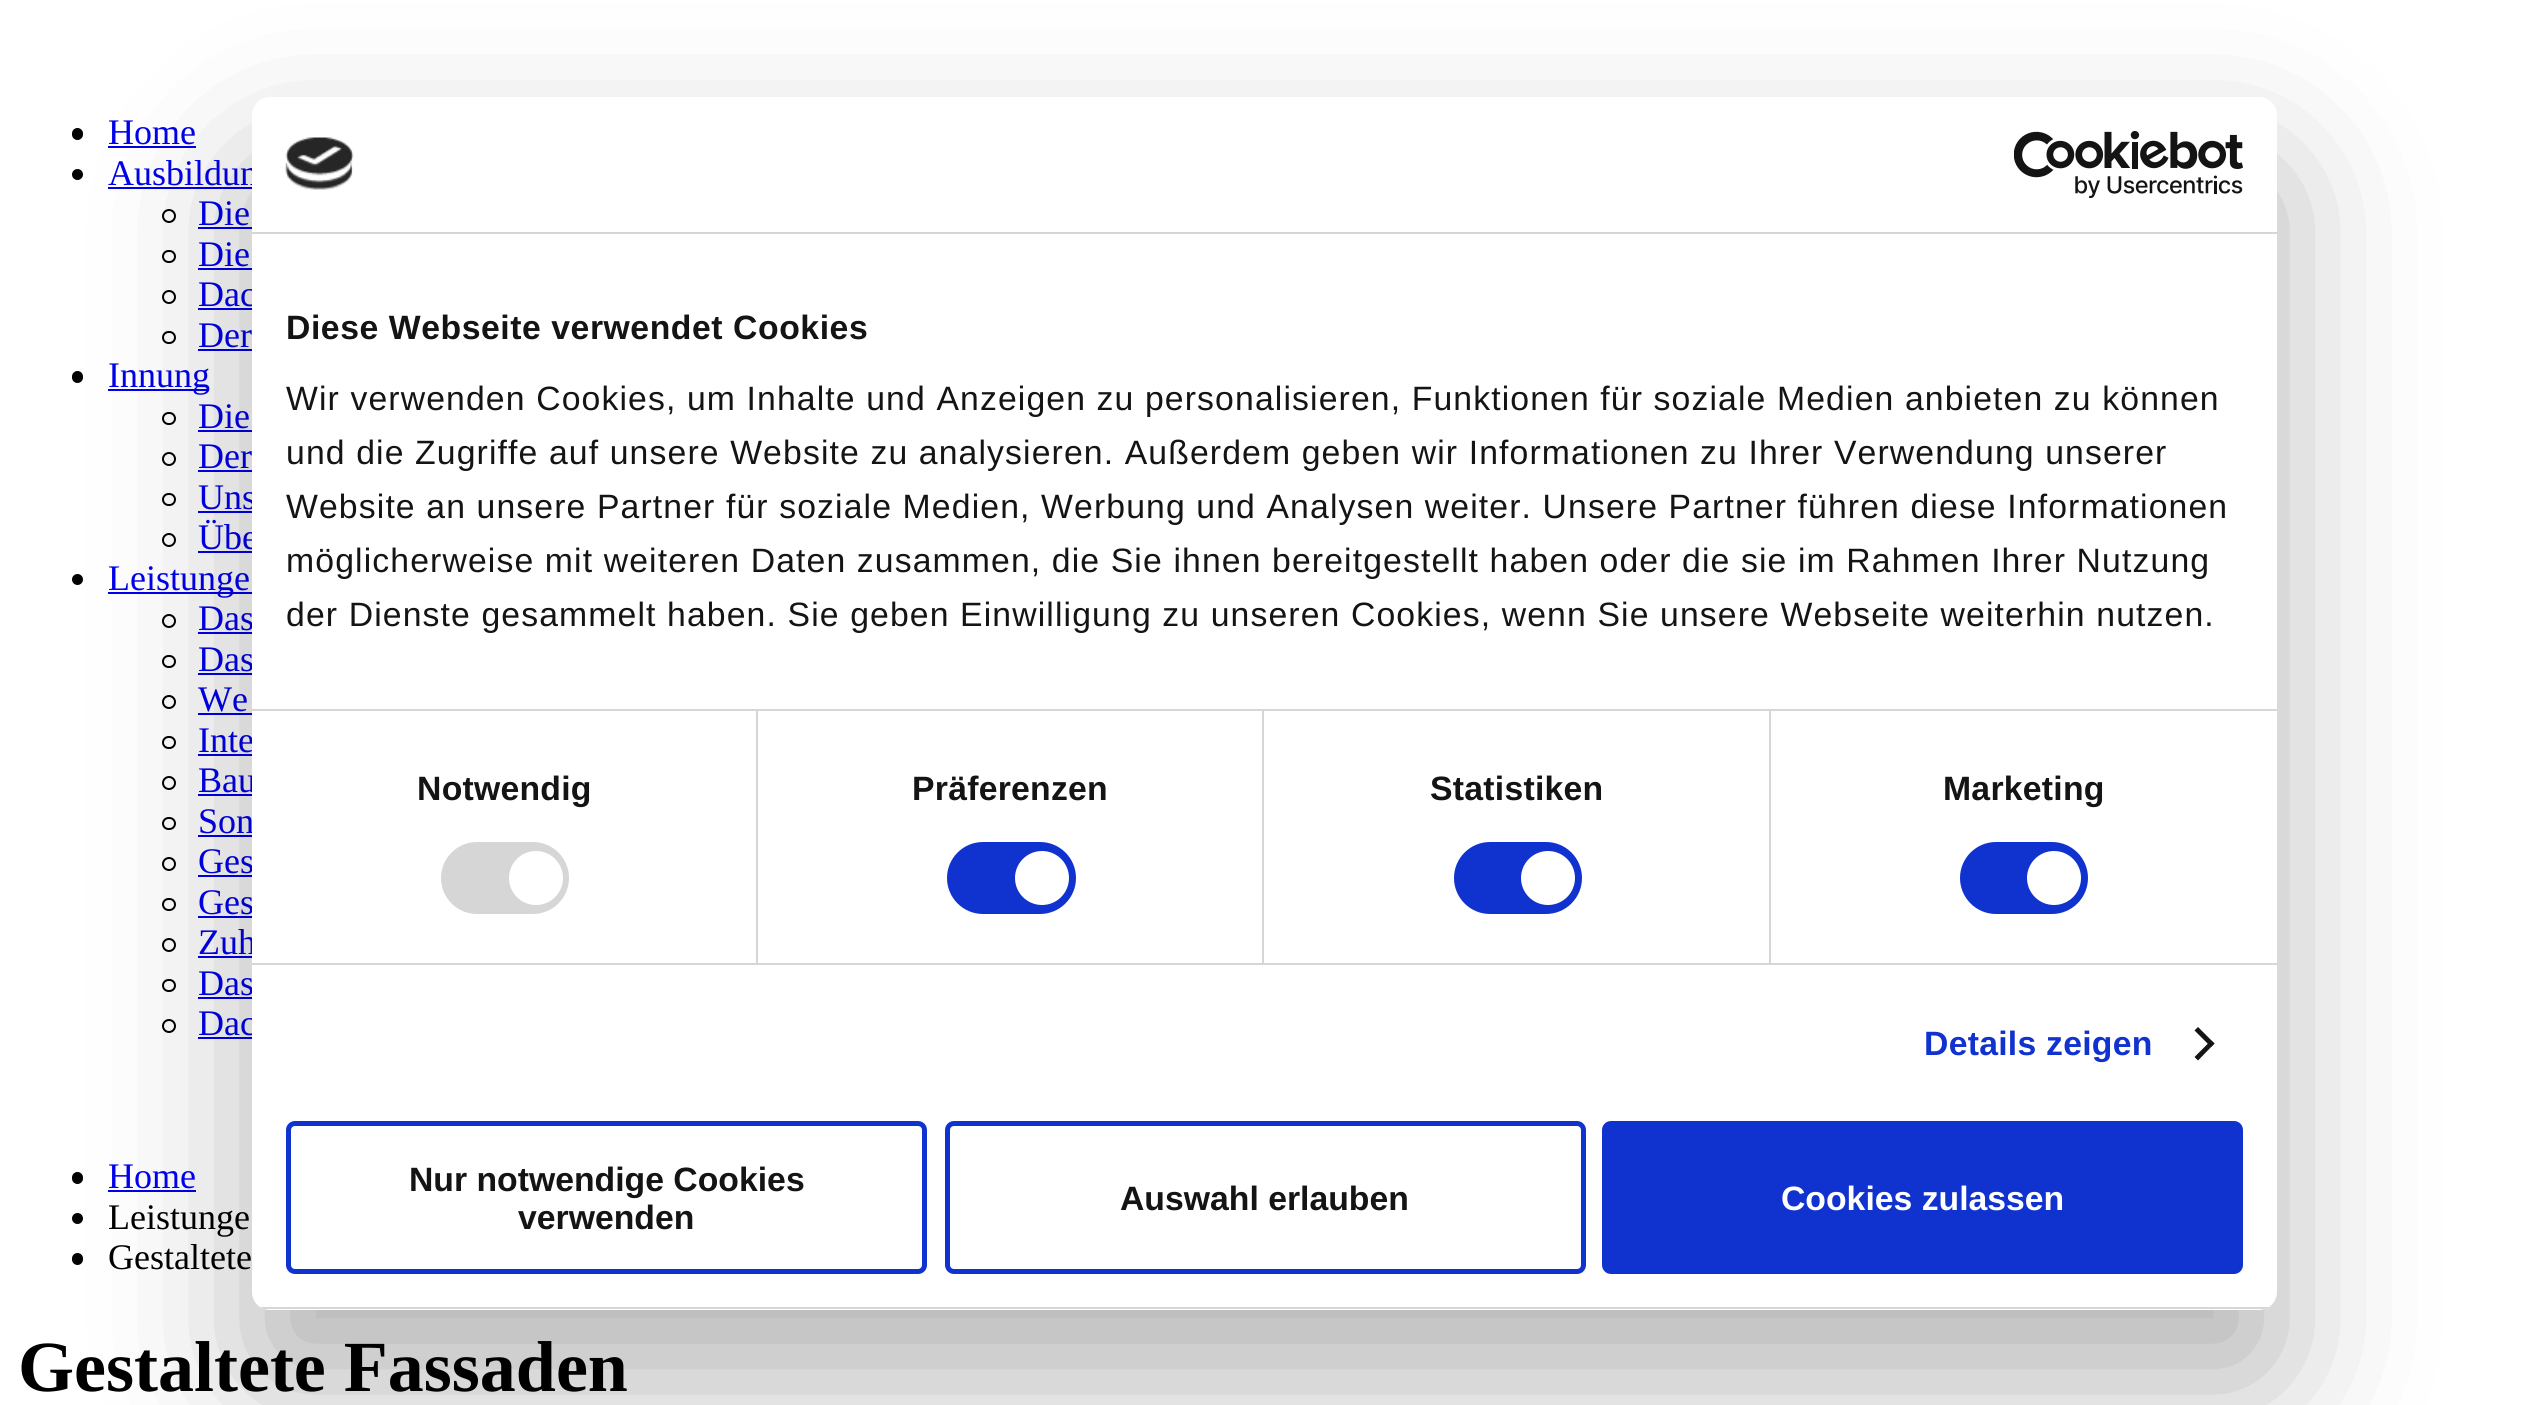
#include <cairo.h>
#include <math.h>
#include <stddef.h>


static void set_color(cairo_t *cr, unsigned color) {
    cairo_set_source_rgb(cr, (color >> 16) / 255.0, (color >> 8 & 255) / 255.0, (color & 255) / 255.0);
}

static void draw_text(cairo_t *cr, double x, double y, const char *s, const char *family, double size, int italic, int bold, unsigned color) {
    cairo_select_font_face(cr, family, italic ? CAIRO_FONT_SLANT_ITALIC : CAIRO_FONT_SLANT_NORMAL,
        bold ? CAIRO_FONT_WEIGHT_BOLD : CAIRO_FONT_WEIGHT_NORMAL);
    cairo_set_font_size(cr, size);
    set_color(cr, color);
    cairo_move_to(cr, x, y);
    cairo_show_text(cr, s);
}

static void draw_spaced(cairo_t *cr, double x, double y, const char *s, double letter, double word) {
    cairo_move_to(cr, x, y);
    while (*s) {
        char ch[5] = {0};
        int n = 0;
        do ch[n++] = *s++; while ((*s & 0xC0) == 0x80);
        cairo_show_text(cr, ch);
        cairo_rel_move_to(cr, letter + word * (*ch == ' '), 0);
    }
}

static void fill_rect(cairo_t *cr, double x, double y, double w, double h, unsigned color) {
    set_color(cr, color);
    cairo_rectangle(cr, x, y, w, h);
    cairo_fill(cr);
}

static void rounded_rect(cairo_t *cr, double x, double y, double w, double h, double r) {
    cairo_new_sub_path(cr);
    cairo_arc(cr, x + w - r, y + h - r, r, 0, M_PI / 2);
    cairo_arc(cr, x + r, y + h - r, r, M_PI / 2, M_PI);
    cairo_arc(cr, x + r, y + r, r, M_PI, 1.5 * M_PI);
    cairo_arc(cr, x + w - r, y + r, r, 1.5 * M_PI, 2 * M_PI);
    cairo_close_path(cr);
}

static void draw_shadow(cairo_t *cr, double x, double y, double w, double h, double r, double blur, double alpha) {
    cairo_push_group_with_content(cr, CAIRO_CONTENT_ALPHA);
    cairo_set_operator(cr, CAIRO_OPERATOR_SOURCE);
    for (int i = 15; i >= -15 && fmin(w, h) + blur * i / 3 > 0; i -= 2) {
        double e = blur * i / 6;
        cairo_set_source_rgba(cr, 0, 0, 0, alpha * erfc((i - 1) / 8.5) / 2);
        rounded_rect(cr, x - e, y - e, w + 2 * e, h + 2 * e, fmax(0, fmin(r + e + blur * .6, fmin(w, h) / 2 + e)));
        cairo_fill(cr);
    }
    cairo_pattern_t *soft = cairo_pop_group(cr);
    cairo_mask(cr, soft);
    cairo_pattern_destroy(soft);
}

static void draw_image(cairo_t *cr, const char *path, double x, double y, double w, double h) {
    cairo_surface_t *image = cairo_image_surface_create_from_png(path);
    cairo_save(cr);
    cairo_set_source_surface(cr, image, x, y);
    cairo_rectangle(cr, x, y, w, h);
    cairo_fill(cr);
    cairo_restore(cr);
    cairo_surface_destroy(image);
}

int main(void) {
    cairo_surface_t *surface = cairo_image_surface_create(CAIRO_FORMAT_RGB24, 2527, 1405);
    cairo_t *cr = cairo_create(surface);
    cairo_font_options_t *options = cairo_font_options_create();
    cairo_font_options_set_hint_metrics(options, CAIRO_HINT_METRICS_OFF);
    cairo_font_options_set_hint_style(options, CAIRO_HINT_STYLE_NONE);
    cairo_set_font_options(cr, options);
    cairo_set_miter_limit(cr, 4);
    set_color(cr, 0xFFFFFF);
    cairo_paint(cr);
    set_color(cr, 0x000000);
    rounded_rect(cr, 72, 128, 11, 12, 5.5);
    cairo_fill(cr);
    draw_text(cr, 108, 144, "Home", "Liberation Serif", 36, 0, 0, 0x0000EE);
    fill_rect(cr, 108, 146, 88, 2, 0x0000EE);
    set_color(cr, 0x000000);
    cairo_new_path(cr);
    cairo_arc(cr, 77.5, 174.5, 5.5, 0, 2 * M_PI);
    cairo_fill(cr);
    draw_text(cr, 108, 185, "Ausbildun", "Liberation Serif", 36, 0, 0, 0x0000EE);
    fill_rect(cr, 108, 187, 144, 2, 0x0000EE);
    cairo_new_path(cr);
    cairo_arc(cr, 169, 216, 6, 0, 2 * M_PI);
    set_color(cr, 0x000000);
    cairo_stroke(cr);
    draw_text(cr, 198, 225, "Die", "Liberation Serif", 36, 0, 0, 0x0000EE);
    fill_rect(cr, 198, 227, 54, 2, 0x0000EE);
    rounded_rect(cr, 163, 251, 12, 11, 5.5);
    set_color(cr, 0x000000);
    cairo_stroke(cr);
    draw_text(cr, 198, 266, "Die", "Liberation Serif", 36, 0, 0, 0x0000EE);
    fill_rect(cr, 198, 268, 54, 2, 0x0000EE);
    cairo_new_path(cr);
    cairo_arc(cr, 169, 297, 6, 0, 2 * M_PI);
    set_color(cr, 0x000000);
    cairo_stroke(cr);
    draw_text(cr, 198, 306, "Dac", "Liberation Serif", 36, 0, 0, 0x0000EE);
    fill_rect(cr, 198, 308, 54, 2, 0x0000EE);
    rounded_rect(cr, 163, 332, 12, 11, 5.5);
    set_color(cr, 0x000000);
    cairo_stroke(cr);
    draw_text(cr, 198, 347, "Der", "Liberation Serif", 36, 0, 0, 0x0000EE);
    fill_rect(cr, 198, 349, 54, 2, 0x0000EE);
    set_color(cr, 0x000000);
    rounded_rect(cr, 72, 371, 11, 12, 5.5);
    cairo_fill(cr);
    fill_rect(cr, 108, 389, 101, 2, 0x0000EE);
    draw_text(cr, 108, 387, "Innung", "Liberation Serif", 36, 0, 0, 0x0000EE);
    rounded_rect(cr, 163, 413, 12, 11, 5.5);
    set_color(cr, 0x000000);
    cairo_stroke(cr);
    draw_text(cr, 198, 428, "Die", "Liberation Serif", 36, 0, 0, 0x0000EE);
    fill_rect(cr, 198, 430, 54, 2, 0x0000EE);
    cairo_new_path(cr);
    cairo_arc(cr, 169, 459, 6, 0, 2 * M_PI);
    set_color(cr, 0x000000);
    cairo_stroke(cr);
    draw_text(cr, 198, 468, "Der", "Liberation Serif", 36, 0, 0, 0x0000EE);
    fill_rect(cr, 198, 470, 54, 2, 0x0000EE);
    rounded_rect(cr, 163, 494, 12, 11, 5.5);
    set_color(cr, 0x000000);
    cairo_stroke(cr);
    draw_text(cr, 198, 509, "Uns", "Liberation Serif", 36, 0, 0, 0x0000EE);
    fill_rect(cr, 198, 511, 54, 2, 0x0000EE);
    cairo_new_path(cr);
    cairo_arc(cr, 169, 540, 6, 0, 2 * M_PI);
    set_color(cr, 0x000000);
    cairo_stroke(cr);
    draw_text(cr, 198, 549, "Übe", "Liberation Serif", 36, 0, 0, 0x0000EE);
    fill_rect(cr, 198, 551, 54, 2, 0x0000EE);
    set_color(cr, 0x000000);
    cairo_new_path(cr);
    cairo_arc(cr, 77.5, 579.5, 5.5, 0, 2 * M_PI);
    cairo_fill(cr);
    fill_rect(cr, 108, 592, 144, 2, 0x0000EE);
    draw_text(cr, 108, 590, "Leistunge", "Liberation Serif", 36, 0, 0, 0x0000EE);
    cairo_new_path(cr);
    cairo_arc(cr, 169, 621, 6, 0, 2 * M_PI);
    set_color(cr, 0x000000);
    cairo_stroke(cr);
    draw_text(cr, 198, 630, "Das", "Liberation Serif", 36, 0, 0, 0x0000EE);
    fill_rect(cr, 198, 632, 54, 2, 0x0000EE);
    rounded_rect(cr, 163, 656, 12, 11, 5.5);
    set_color(cr, 0x000000);
    cairo_stroke(cr);
    draw_text(cr, 198, 671, "Das", "Liberation Serif", 36, 0, 0, 0x0000EE);
    fill_rect(cr, 198, 673, 54, 2, 0x0000EE);
    cairo_new_path(cr);
    cairo_arc(cr, 169, 702, 6, 0, 2 * M_PI);
    set_color(cr, 0x000000);
    cairo_stroke(cr);
    draw_text(cr, 198, 711, "We", "Liberation Serif", 36, 0, 0, 0x0000EE);
    fill_rect(cr, 198, 713, 54, 2, 0x0000EE);
    rounded_rect(cr, 163, 737, 12, 11, 5.5);
    set_color(cr, 0x000000);
    cairo_stroke(cr);
    draw_text(cr, 198, 752, "Inte", "Liberation Serif", 36, 0, 0, 0x0000EE);
    fill_rect(cr, 198, 754, 54, 2, 0x0000EE);
    cairo_new_path(cr);
    cairo_arc(cr, 169, 783, 6, 0, 2 * M_PI);
    set_color(cr, 0x000000);
    cairo_stroke(cr);
    draw_text(cr, 198, 792, "Bau", "Liberation Serif", 36, 0, 0, 0x0000EE);
    fill_rect(cr, 198, 794, 54, 2, 0x0000EE);
    rounded_rect(cr, 163, 818, 12, 11, 5.5);
    set_color(cr, 0x000000);
    cairo_stroke(cr);
    draw_text(cr, 198, 833, "Son", "Liberation Serif", 36, 0, 0, 0x0000EE);
    fill_rect(cr, 198, 835, 54, 2, 0x0000EE);
    cairo_new_path(cr);
    cairo_arc(cr, 169, 864, 6, 0, 2 * M_PI);
    set_color(cr, 0x000000);
    cairo_stroke(cr);
    draw_text(cr, 198, 873, "Ges", "Liberation Serif", 36, 0, 0, 0x0000EE);
    fill_rect(cr, 198, 875, 54, 2, 0x0000EE);
    rounded_rect(cr, 163, 899, 12, 11, 5.5);
    set_color(cr, 0x000000);
    cairo_stroke(cr);
    draw_text(cr, 198, 914, "Ges", "Liberation Serif", 36, 0, 0, 0x0000EE);
    fill_rect(cr, 198, 916, 54, 2, 0x0000EE);
    cairo_new_path(cr);
    cairo_arc(cr, 169, 945, 6, 0, 2 * M_PI);
    set_color(cr, 0x000000);
    cairo_stroke(cr);
    draw_text(cr, 198, 954, "Zuh", "Liberation Serif", 36, 0, 0, 0x0000EE);
    fill_rect(cr, 198, 956, 54, 2, 0x0000EE);
    rounded_rect(cr, 163, 980, 12, 11, 5.5);
    set_color(cr, 0x000000);
    cairo_stroke(cr);
    draw_text(cr, 198, 995, "Das", "Liberation Serif", 36, 0, 0, 0x0000EE);
    fill_rect(cr, 198, 997, 54, 2, 0x0000EE);
    cairo_new_path(cr);
    cairo_arc(cr, 169, 1026, 6, 0, 2 * M_PI);
    set_color(cr, 0x000000);
    cairo_stroke(cr);
    draw_text(cr, 198, 1035, "Dac", "Liberation Serif", 36, 0, 0, 0x0000EE);
    fill_rect(cr, 198, 1037, 54, 2, 0x0000EE);
    set_color(cr, 0x000000);
    rounded_rect(cr, 72, 1172, 11, 12, 5.5);
    cairo_fill(cr);
    fill_rect(cr, 108, 1190, 88, 2, 0x0000EE);
    set_color(cr, 0x000000);
    cairo_arc(cr, 77.5, 1218.5, 5.5, 0, 2 * M_PI);
    cairo_fill(cr);
    rounded_rect(cr, 72, 1253, 11, 12, 5.5);
    cairo_fill(cr);
    set_color(cr, 0x000000);
    draw_shadow(cr, 252, 169, 2025, 1213, 18, 76.5, 0.3);
    set_color(cr, 0xFFFFFF);
    rounded_rect(cr, 252, 97, 2025, 1213, 18);
    cairo_fill(cr);
    fill_rect(cr, 252, 232, 2025, 2, 0xD6D6D6);
    draw_image(cr, "assets/img1.png", 285, 137, 69, 53);
    draw_image(cr, "assets/img2.png", 2014, 131, 229, 67);
    fill_rect(cr, 252, 709, 2025, 2, 0xD6D6D6);
    cairo_select_font_face(cr, "Liberation Sans", CAIRO_FONT_SLANT_NORMAL, CAIRO_FONT_WEIGHT_BOLD);
    cairo_set_font_size(cr, 33.75);
    set_color(cr, 0x141414);
    draw_spaced(cr, 286, 339, "Diese Webseite verwendet Cookies", 0.55, 0);
    cairo_select_font_face(cr, "Liberation Sans", CAIRO_FONT_SLANT_NORMAL, CAIRO_FONT_WEIGHT_NORMAL);
    draw_spaced(cr, 286, 410, "Wir verwenden Cookies, um Inhalte und Anzeigen zu personalisieren, Funktionen für soziale Medien anbieten zu können", 1.12, 0);
    draw_spaced(cr, 286, 464, "und die Zugriffe auf unsere Website zu analysieren. Außerdem geben wir Informationen zu Ihrer Verwendung unserer", 1.12, 0);
    draw_spaced(cr, 286, 518, "Website an unsere Partner für soziale Medien, Werbung und Analysen weiter. Unsere Partner führen diese Informationen", 1.12, 0);
    draw_spaced(cr, 286, 572, "möglicherweise mit weiteren Daten zusammen, die Sie ihnen bereitgestellt haben oder die sie im Rahmen Ihrer Nutzung", 1.12, 0);
    draw_spaced(cr, 286, 626, "der Dienste gesammelt haben. Sie geben Einwilligung zu unseren Cookies, wenn Sie unsere Webseite weiterhin nutzen.", 1.12, 0);
    fill_rect(cr, 252, 963, 2025, 2, 0xD6D6D6);
    fill_rect(cr, 756, 711, 2, 252, 0xD6D6D6);
    cairo_select_font_face(cr, "Liberation Sans", CAIRO_FONT_SLANT_NORMAL, CAIRO_FONT_WEIGHT_BOLD);
    set_color(cr, 0x141414);
    draw_spaced(cr, 417, 800, "Notwendig", 0.25, 0);
    set_color(cr, 0xD6D6D6);
    rounded_rect(cr, 441, 842, 128, 72, 36);
    cairo_fill(cr);
    set_color(cr, 0xFFFFFF);
    cairo_arc(cr, 536, 878, 27, 0, 2 * M_PI);
    cairo_fill(cr);
    fill_rect(cr, 1262, 711, 2, 252, 0xD6D6D6);
    set_color(cr, 0x141414);
    draw_spaced(cr, 912, 800, "Präferenzen", 0.25, 0);
    set_color(cr, 0x1032CF);
    rounded_rect(cr, 947, 842, 129, 72, 36);
    cairo_fill(cr);
    set_color(cr, 0xFFFFFF);
    cairo_arc(cr, 1042, 878, 27, 0, 2 * M_PI);
    cairo_fill(cr);
    fill_rect(cr, 1769, 711, 2, 252, 0xD6D6D6);
    set_color(cr, 0x141414);
    draw_spaced(cr, 1430, 800, "Statistiken", 0.25, 0);
    set_color(cr, 0x1032CF);
    rounded_rect(cr, 1454, 842, 128, 72, 36);
    cairo_fill(cr);
    set_color(cr, 0xFFFFFF);
    cairo_arc(cr, 1548, 878, 27, 0, 2 * M_PI);
    cairo_fill(cr);
    set_color(cr, 0x141414);
    draw_spaced(cr, 1943, 800, "Marketing", 0.25, 0);
    set_color(cr, 0x1032CF);
    rounded_rect(cr, 1960, 842, 128, 72, 36);
    cairo_fill(cr);
    set_color(cr, 0xFFFFFF);
    cairo_arc(cr, 2054, 878, 27, 0, 2 * M_PI);
    cairo_fill(cr);
    set_color(cr, 0x1032CF);
    draw_spaced(cr, 1924, 1055, "Details zeigen", 0.25, 0);
    set_color(cr, 0x141414);
    cairo_new_path(cr);
    cairo_move_to(cr, 2198, 1027);
    cairo_line_to(cr, 2214.5, 1043.5);
    cairo_line_to(cr, 2211, 1047);
    cairo_line_to(cr, 2194.5, 1030.5);
    cairo_close_path(cr);
    cairo_fill(cr);
    cairo_new_path(cr);
    cairo_move_to(cr, 2211, 1040.5);
    cairo_line_to(cr, 2214.5, 1043.5);
    cairo_line_to(cr, 2198, 1060.5);
    cairo_line_to(cr, 2194.5, 1057);
    cairo_close_path(cr);
    cairo_fill(cr);
    cairo_save(cr);
    rounded_rect(cr, 252, 97, 2025, 1213, 18);
    cairo_clip(cr);
    fill_rect(cr, 252, 1307, 2025, 2, 0xD6D6D6);
    cairo_restore(cr);
    rounded_rect(cr, 288.5, 1123.5, 636, 148, 6.5);
    set_color(cr, 0x1032CF);
    cairo_set_line_width(cr, 5);
    cairo_stroke(cr);
    draw_text(cr, 409, 1191, "Nur notwendige Cookies", "Liberation Sans", 33.75, 0, 1, 0x141414);
    draw_text(cr, 518, 1229, "verwenden", "Liberation Sans", 33.75, 0, 1, 0x141414);
    rounded_rect(cr, 947.5, 1123.5, 636, 148, 6.5);
    set_color(cr, 0x1032CF);
    cairo_stroke(cr);
    draw_text(cr, 1120, 1210, "Auswahl erlauben", "Liberation Sans", 33.75, 0, 1, 0x141414);
    set_color(cr, 0x1032CF);
    rounded_rect(cr, 1604.5, 1123.5, 636, 148, 6.5);
    cairo_fill_preserve(cr);
    cairo_stroke(cr);
    draw_text(cr, 1781, 1210, "Cookies zulassen", "Liberation Sans", 33.75, 0, 1, 0xFFFFFF);
    draw_text(cr, 108, 1188, "Home", "Liberation Serif", 36, 0, 0, 0x0000EE);
    draw_text(cr, 108, 1229, "Leistunge", "Liberation Serif", 36, 0, 0, 0x000000);
    draw_text(cr, 108, 1269, "Gestaltete", "Liberation Serif", 36, 0, 0, 0x000000);
    draw_text(cr, 18, 1391, "Gestaltete Fassaden", "Liberation Serif", 72, 0, 1, 0x000000);
    cairo_surface_write_to_png(surface, "output.png");
    cairo_font_options_destroy(options);
    cairo_destroy(cr);
    cairo_surface_destroy(surface);
    return 0;
}
